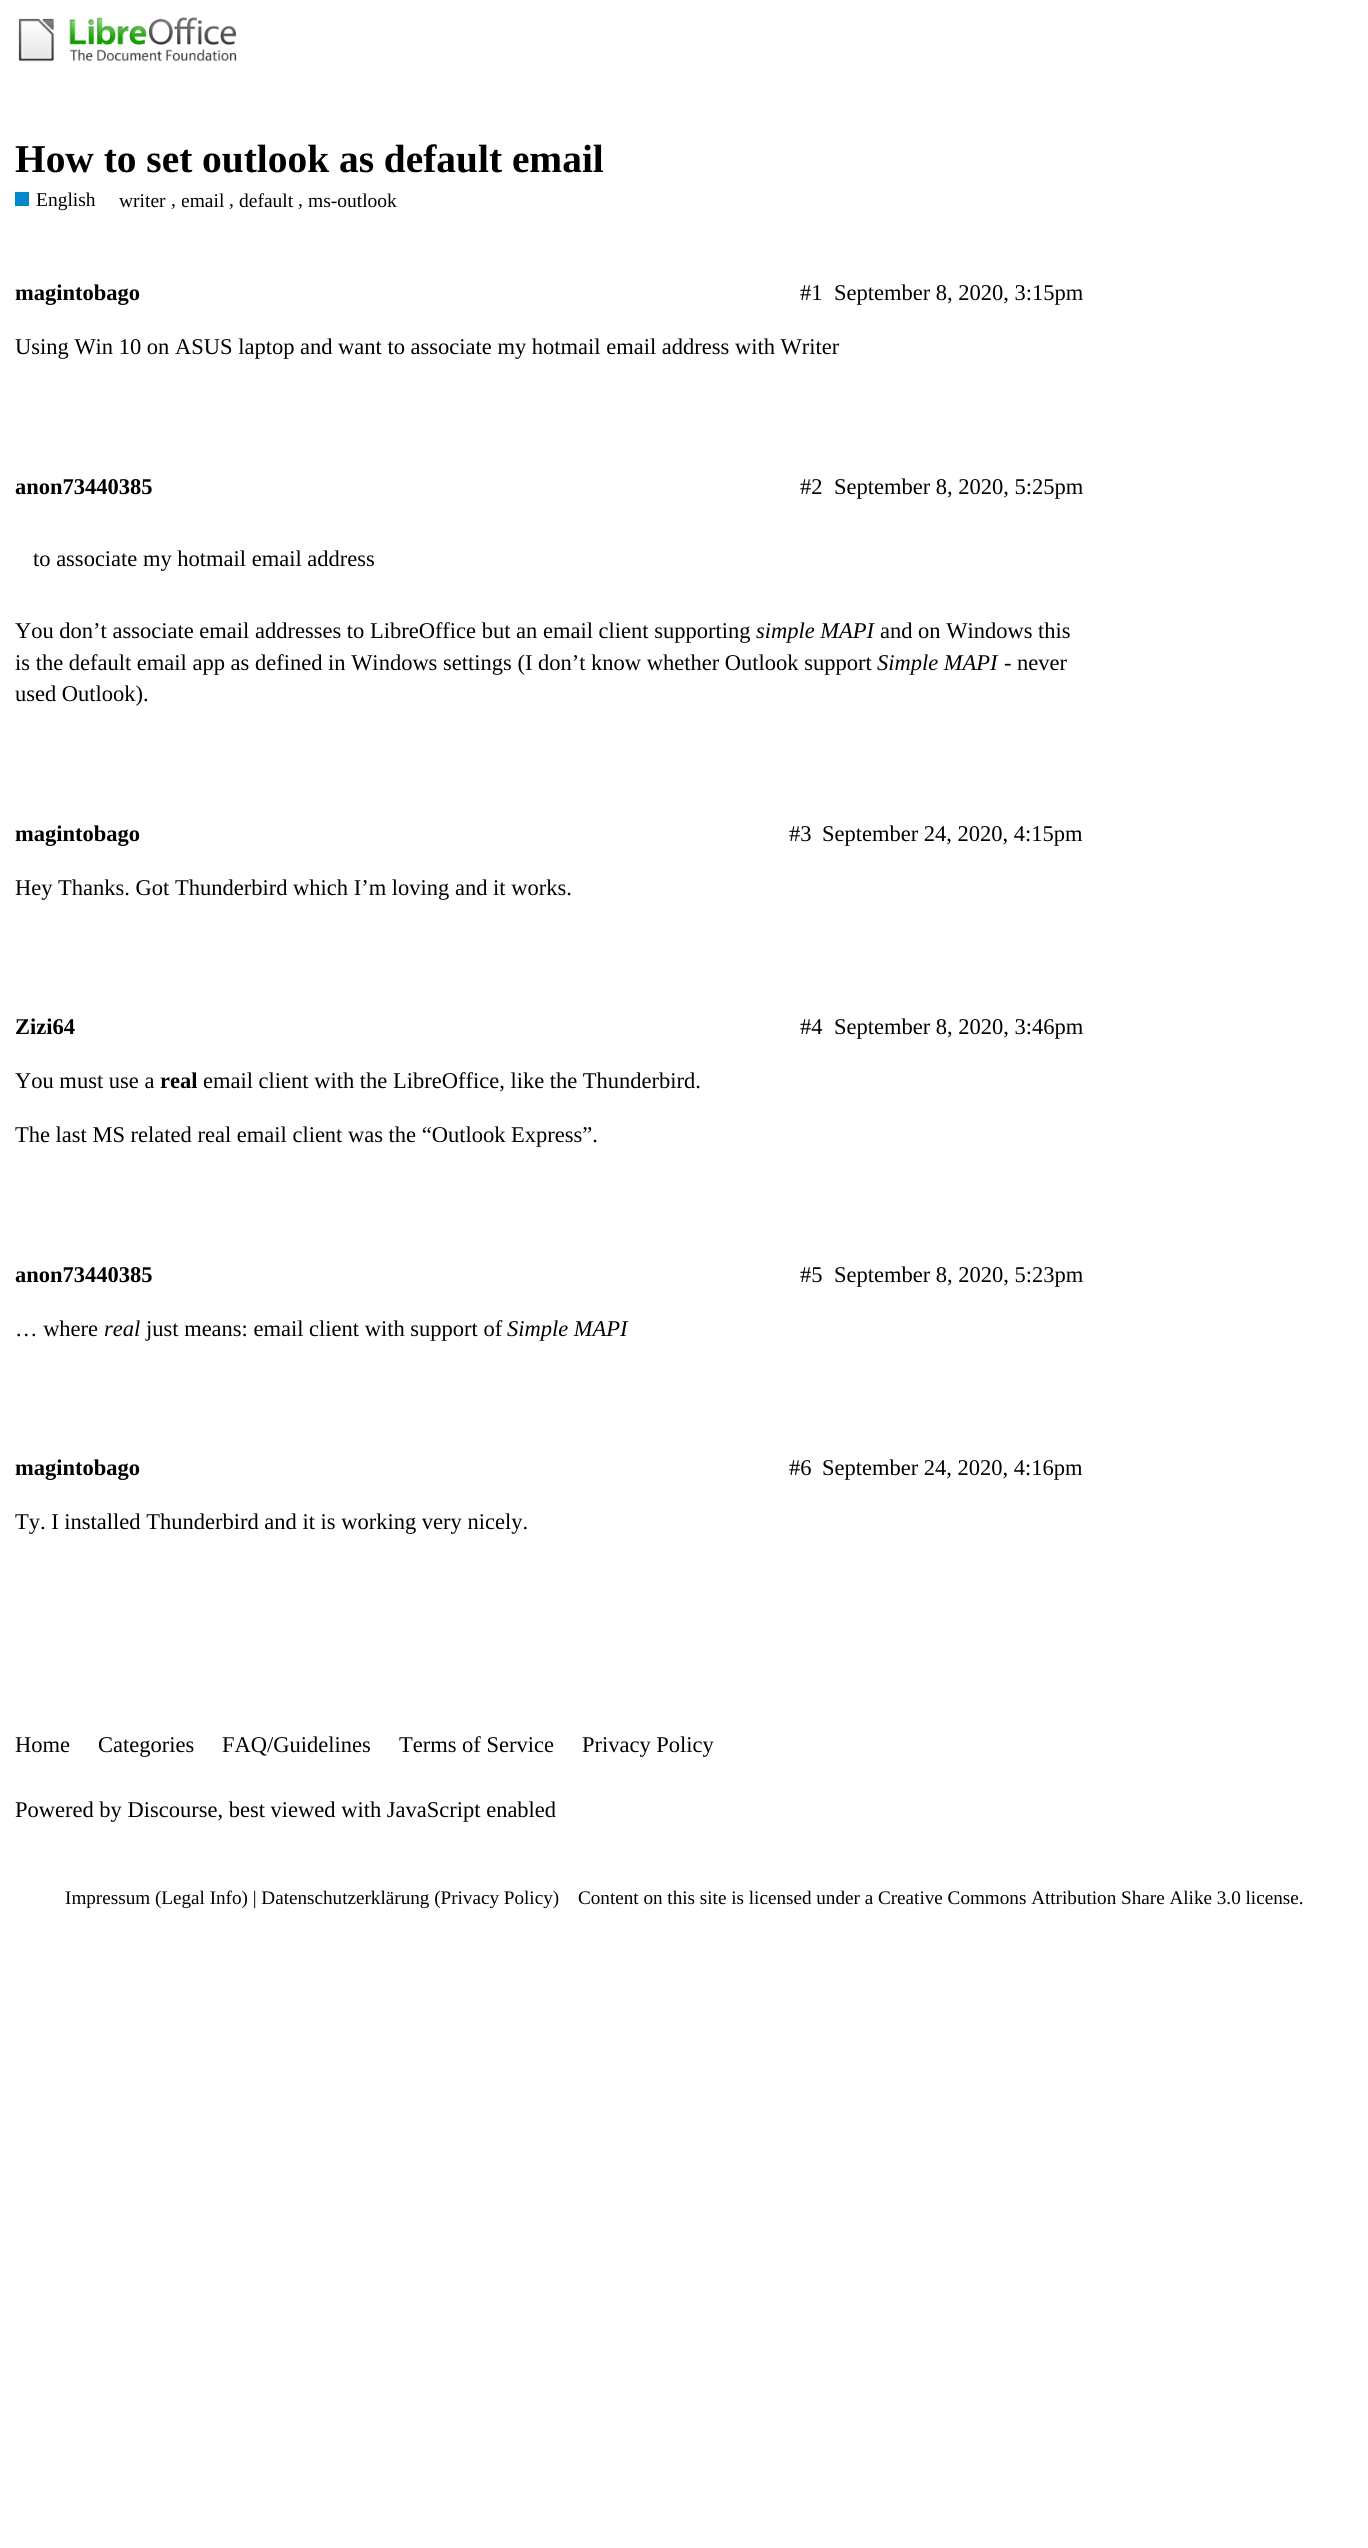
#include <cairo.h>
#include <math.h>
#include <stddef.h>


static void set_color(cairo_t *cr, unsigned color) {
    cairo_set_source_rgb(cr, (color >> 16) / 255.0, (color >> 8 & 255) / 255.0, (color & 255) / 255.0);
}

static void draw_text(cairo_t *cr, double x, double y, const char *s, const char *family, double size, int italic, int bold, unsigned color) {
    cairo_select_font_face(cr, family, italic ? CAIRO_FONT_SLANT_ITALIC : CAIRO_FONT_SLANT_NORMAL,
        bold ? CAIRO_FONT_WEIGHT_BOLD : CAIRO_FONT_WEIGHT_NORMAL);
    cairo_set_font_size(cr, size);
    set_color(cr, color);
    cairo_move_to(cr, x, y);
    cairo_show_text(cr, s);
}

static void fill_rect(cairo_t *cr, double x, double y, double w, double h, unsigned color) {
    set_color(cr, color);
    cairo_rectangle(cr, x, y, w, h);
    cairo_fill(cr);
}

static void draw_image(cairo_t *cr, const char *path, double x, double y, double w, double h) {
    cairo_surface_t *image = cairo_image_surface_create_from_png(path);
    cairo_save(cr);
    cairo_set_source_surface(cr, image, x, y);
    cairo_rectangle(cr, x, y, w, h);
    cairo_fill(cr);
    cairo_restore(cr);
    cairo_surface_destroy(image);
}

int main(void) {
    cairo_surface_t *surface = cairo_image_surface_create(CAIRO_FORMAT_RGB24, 1368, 2548);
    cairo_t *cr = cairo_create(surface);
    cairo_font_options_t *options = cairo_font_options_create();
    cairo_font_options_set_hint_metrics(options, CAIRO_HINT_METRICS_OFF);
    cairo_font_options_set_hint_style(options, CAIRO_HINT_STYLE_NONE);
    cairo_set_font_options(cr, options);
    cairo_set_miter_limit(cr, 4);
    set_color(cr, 0xFFFFFF);
    cairo_paint(cr);
    draw_image(cr, "assets/img1.png", 18, 17, 219, 45);
    draw_text(cr, 15, 172, "How to set outlook as default email", "Liberation Serif", 39.4, 0, 1, 0x000000);
    fill_rect(cr, 15, 192, 14, 14, 0x0088CC);
    draw_text(cr, 36, 206, "English", "Liberation Serif", 19.5, 0, 0, 0x000000);
    draw_text(cr, 119, 207, "writer", "Liberation Serif", 19.5, 0, 0, 0x000000);
    draw_text(cr, 171, 206, ",", "Liberation Serif", 19.5, 0, 0, 0x000000);
    cairo_save(cr);
    cairo_rectangle(cr, 182, 188, 43, 27);
    cairo_clip(cr);
    draw_text(cr, 181, 207, "email", "Liberation Serif", 19.5, 0, 0, 0x000000);
    cairo_restore(cr);
    draw_text(cr, 229, 206, ",", "Liberation Serif", 19.5, 0, 0, 0x000000);
    draw_text(cr, 239, 207, "default", "Liberation Serif", 19.5, 0, 0, 0x000000);
    draw_text(cr, 298, 206, ",", "Liberation Serif", 19.5, 0, 0, 0x000000);
    draw_text(cr, 308, 207, "ms-outlook", "Liberation Serif", 19.5, 0, 0, 0x000000);
    draw_text(cr, 15, 300, "magintobago", "Liberation Serif", 22.5, 0, 1, 0x000000);
    draw_text(cr, 800, 300, "#1", "Liberation Serif", 22.5, 0, 0, 0x000000);
    draw_text(cr, 834, 300, "September 8, 2020, 3:15pm", "Liberation Serif", 22.5, 0, 0, 0x000000);
    draw_text(cr, 15, 354, "Using Win 10 on ASUS laptop and want to associate my hotmail email address with Writer", "Liberation Serif", 22.5, 0, 0, 0x000000);
    draw_text(cr, 15, 494, "anon73440385", "Liberation Serif", 22.5, 0, 1, 0x000000);
    draw_text(cr, 800, 494, "#2", "Liberation Serif", 22.5, 0, 0, 0x000000);
    draw_text(cr, 834, 494, "September 8, 2020, 5:25pm", "Liberation Serif", 22.5, 0, 0, 0x000000);
    draw_text(cr, 33, 566, "to associate my hotmail email address", "Liberation Serif", 22.5, 0, 0, 0x000000);
    draw_text(cr, 15, 638, "You don’t associate email addresses to LibreOffice but an email client supporting", "Liberation Serif", 22.5, 0, 0, 0x000000);
    draw_text(cr, 756, 638, "simple MAPI", "Liberation Serif", 22.5, 1, 0, 0x000000);
    draw_text(cr, 880, 638, "and on Windows this", "Liberation Serif", 22.5, 0, 0, 0x000000);
    draw_text(cr, 15, 670, "is the default email app as defined in Windows settings (I don’t know whether Outlook support", "Liberation Serif", 22.5, 0, 0, 0x000000);
    draw_text(cr, 877, 670, "Simple MAPI", "Liberation Serif", 22.5, 1, 0, 0x000000);
    draw_text(cr, 1004, 670, "- never", "Liberation Serif", 22.5, 0, 0, 0x000000);
    draw_text(cr, 15, 701, "used Outlook).", "Liberation Serif", 22.5, 0, 0, 0x000000);
    draw_text(cr, 15, 841, "magintobago", "Liberation Serif", 22.5, 0, 1, 0x000000);
    draw_text(cr, 789, 841, "#3", "Liberation Serif", 22.5, 0, 0, 0x000000);
    draw_text(cr, 822, 841, "September 24, 2020, 4:15pm", "Liberation Serif", 22.5, 0, 0, 0x000000);
    draw_text(cr, 15, 895, "Hey Thanks. Got Thunderbird which I’m loving and it works.", "Liberation Serif", 22.5, 0, 0, 0x000000);
    draw_text(cr, 15, 1034, "Zizi64", "Liberation Serif", 22.5, 0, 1, 0x000000);
    draw_text(cr, 800, 1034, "#4", "Liberation Serif", 22.5, 0, 0, 0x000000);
    draw_text(cr, 834, 1034, "September 8, 2020, 3:46pm", "Liberation Serif", 22.5, 0, 0, 0x000000);
    draw_text(cr, 15, 1088, "You must use a", "Liberation Serif", 22.5, 0, 0, 0x000000);
    draw_text(cr, 160, 1088, "real", "Liberation Serif", 22.5, 0, 1, 0x000000);
    draw_text(cr, 203, 1088, "email client with the LibreOffice, like the Thunderbird.", "Liberation Serif", 22.5, 0, 0, 0x000000);
    draw_text(cr, 15, 1142, "The last MS related real email client was the “Outlook Express”.", "Liberation Serif", 22.5, 0, 0, 0x000000);
    draw_text(cr, 15, 1282, "anon73440385", "Liberation Serif", 22.5, 0, 1, 0x000000);
    draw_text(cr, 800, 1282, "#5", "Liberation Serif", 22.5, 0, 0, 0x000000);
    draw_text(cr, 834, 1282, "September 8, 2020, 5:23pm", "Liberation Serif", 22.5, 0, 0, 0x000000);
    draw_text(cr, 15, 1336, "… where", "Liberation Serif", 22.5, 0, 0, 0x000000);
    draw_text(cr, 104, 1336, "real", "Liberation Serif", 22.5, 1, 0, 0x000000);
    draw_text(cr, 146, 1336, "just means: email client with support of", "Liberation Serif", 22.5, 0, 0, 0x000000);
    draw_text(cr, 507, 1336, "Simple MAPI", "Liberation Serif", 22.5, 1, 0, 0x000000);
    draw_text(cr, 15, 1475, "magintobago", "Liberation Serif", 22.5, 0, 1, 0x000000);
    draw_text(cr, 789, 1475, "#6", "Liberation Serif", 22.5, 0, 0, 0x000000);
    draw_text(cr, 822, 1475, "September 24, 2020, 4:16pm", "Liberation Serif", 22.5, 0, 0, 0x000000);
    draw_text(cr, 15, 1529, "Ty. I installed Thunderbird and it is working very nicely.", "Liberation Serif", 22.5, 0, 0, 0x000000);
    draw_text(cr, 15, 1752, "Home", "Liberation Serif", 22.5, 0, 0, 0x000000);
    draw_text(cr, 98, 1752, "Categories", "Liberation Serif", 22.5, 0, 0, 0x000000);
    draw_text(cr, 222, 1752, "FAQ/Guidelines", "Liberation Serif", 22.5, 0, 0, 0x000000);
    draw_text(cr, 399, 1752, "Terms of Service", "Liberation Serif", 22.5, 0, 0, 0x000000);
    draw_text(cr, 582, 1752, "Privacy Policy", "Liberation Serif", 22.5, 0, 0, 0x000000);
    draw_text(cr, 15, 1817, "Powered by Discourse, best viewed with JavaScript enabled", "Liberation Serif", 22.5, 0, 0, 0x000000);
    draw_text(cr, 65, 1904, "Impressum (Legal Info) | Datenschutzerklärung (Privacy Policy)", "Liberation Serif", 19.15, 0, 0, 0x000000);
    draw_text(cr, 578, 1904, "Content on this site is licensed under a Creative Commons Attribution Share Alike 3.0 license.", "Liberation Serif", 19.15, 0, 0, 0x000000);
    cairo_surface_write_to_png(surface, "output.png");
    cairo_font_options_destroy(options);
    cairo_destroy(cr);
    cairo_surface_destroy(surface);
    return 0;
}
